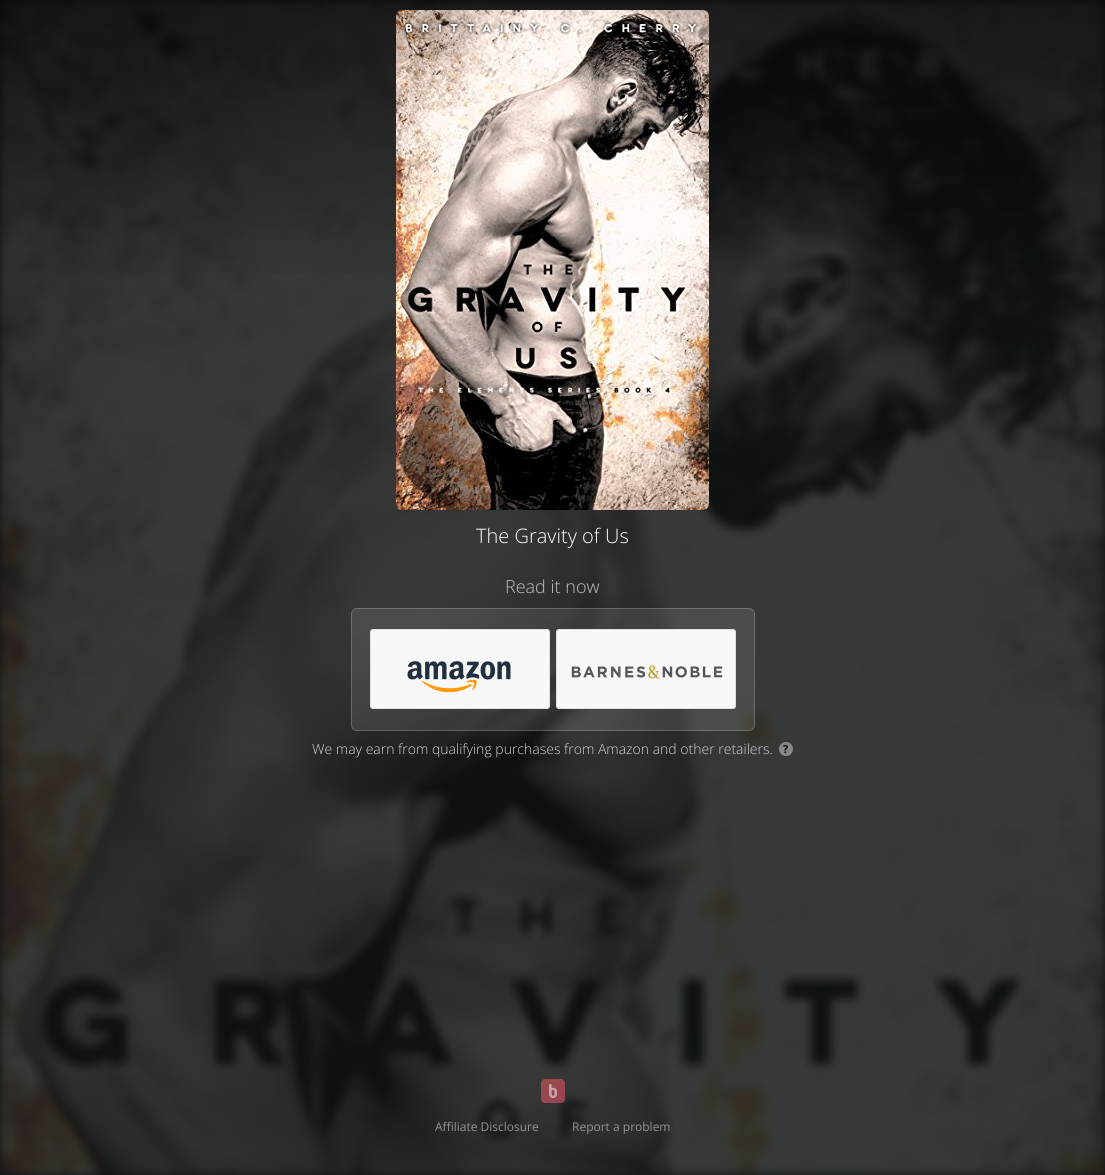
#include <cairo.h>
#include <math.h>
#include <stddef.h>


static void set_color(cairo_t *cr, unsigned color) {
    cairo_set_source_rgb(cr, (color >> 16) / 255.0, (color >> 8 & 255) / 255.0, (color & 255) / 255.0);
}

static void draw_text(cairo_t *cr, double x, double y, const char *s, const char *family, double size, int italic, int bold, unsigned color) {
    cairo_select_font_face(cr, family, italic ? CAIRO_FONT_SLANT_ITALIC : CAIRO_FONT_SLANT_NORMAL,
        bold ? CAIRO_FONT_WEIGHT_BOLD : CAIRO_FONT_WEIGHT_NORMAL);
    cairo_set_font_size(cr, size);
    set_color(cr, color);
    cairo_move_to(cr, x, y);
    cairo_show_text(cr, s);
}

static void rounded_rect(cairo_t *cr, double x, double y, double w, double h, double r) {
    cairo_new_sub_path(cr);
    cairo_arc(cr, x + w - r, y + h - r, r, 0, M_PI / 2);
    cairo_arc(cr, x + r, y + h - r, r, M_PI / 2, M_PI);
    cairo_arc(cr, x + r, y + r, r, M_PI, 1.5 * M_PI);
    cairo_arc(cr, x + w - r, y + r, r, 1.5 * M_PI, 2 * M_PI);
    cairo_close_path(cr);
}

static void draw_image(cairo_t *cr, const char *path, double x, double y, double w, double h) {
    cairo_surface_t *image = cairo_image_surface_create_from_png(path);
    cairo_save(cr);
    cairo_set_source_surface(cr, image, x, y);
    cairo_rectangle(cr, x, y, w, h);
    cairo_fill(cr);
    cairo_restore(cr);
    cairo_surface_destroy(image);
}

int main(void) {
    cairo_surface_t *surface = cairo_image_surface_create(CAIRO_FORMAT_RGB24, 1105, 1175);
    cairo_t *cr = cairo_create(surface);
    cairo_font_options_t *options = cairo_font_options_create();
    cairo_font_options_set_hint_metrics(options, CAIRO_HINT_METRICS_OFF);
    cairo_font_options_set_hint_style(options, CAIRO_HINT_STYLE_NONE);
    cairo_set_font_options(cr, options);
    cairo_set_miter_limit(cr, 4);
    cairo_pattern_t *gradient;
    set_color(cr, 0x0F1415);
    cairo_paint(cr);
    draw_image(cr, "assets/img1.png", 0, 0, 1105, 1175);
    gradient = cairo_pattern_create_linear(553, 0, 553, 300);
    cairo_pattern_add_color_stop_rgba(gradient, 0, 0, 0, 0, 0.5);
    cairo_pattern_add_color_stop_rgba(gradient, 1, 0, 0, 0, 0);
    cairo_set_source(cr, gradient);
    cairo_pattern_destroy(gradient);
    cairo_rectangle(cr, 0, 0, 1105, 273);
    cairo_fill(cr);
    draw_image(cr, "assets/img2.png", 396, 10, 313, 500);
    draw_text(cr, 476, 543, "The Gravity of Us", "Open Sans Light", 20, 0, 0, 0xFFFFFF);
    draw_text(cr, 505, 593, "Read it now", "Open Sans Light", 18, 0, 0, 0xC0C1C1);
    cairo_set_source_rgba(cr, 1, 1, 1, 0.1);
    rounded_rect(cr, 351, 608, 404, 123, 6);
    cairo_fill(cr);
    rounded_rect(cr, 351.5, 608.5, 403, 122, 5.5);
    cairo_set_source_rgba(cr, 1, 1, 1, 0.2);
    cairo_set_line_width(cr, 1);
    cairo_stroke(cr);
    set_color(cr, 0xF8F8F8);
    rounded_rect(cr, 370.5, 629.5, 179, 79, 2.5);
    cairo_fill_preserve(cr);
    set_color(cr, 0xE0E0E0);
    cairo_stroke(cr);
    draw_image(cr, "assets/img3.png", 407, 661, 104, 31);
    set_color(cr, 0xF8F8F8);
    rounded_rect(cr, 556.5, 629.5, 179, 79, 2.5);
    cairo_fill_preserve(cr);
    set_color(cr, 0xE0E0E0);
    cairo_stroke(cr);
    draw_image(cr, "assets/img4.png", 571, 665, 152, 14);
    draw_text(cr, 312, 754, "We may earn from qualifying purchases from Amazon and other retailers.", "Open Sans Light", 14, 0, 0, 0xD3D4D4);
    cairo_set_source_rgba(cr, 1, 1, 1, 0.4);
    cairo_new_path(cr);
    cairo_arc(cr, 786, 749, 7, 0, 2 * M_PI);
    cairo_fill(cr);
    draw_text(cr, 783, 753, "?", "Open Sans", 11, 0, 1, 0x0B0B0C);
    gradient = cairo_pattern_create_linear(541, 1079, 565, 1103);
    cairo_pattern_add_color_stop_rgba(gradient, 0, 0.976, 0.384, 0.349, 0.5);
    cairo_pattern_add_color_stop_rgba(gradient, 1, 1, 0.325, 0.478, 0.5);
    cairo_set_source(cr, gradient);
    cairo_pattern_destroy(gradient);
    rounded_rect(cr, 541, 1079, 24, 24, 4);
    cairo_fill(cr);
    draw_image(cr, "assets/img5.png", 549, 1084, 8, 14);
    draw_text(cr, 435, 1131, "Affiliate Disclosure", "Open Sans", 12, 0, 0, 0x939393);
    draw_text(cr, 572, 1131, "Report a problem", "Open Sans", 12, 0, 0, 0x939393);
    cairo_surface_write_to_png(surface, "output.png");
    cairo_font_options_destroy(options);
    cairo_destroy(cr);
    cairo_surface_destroy(surface);
    return 0;
}
